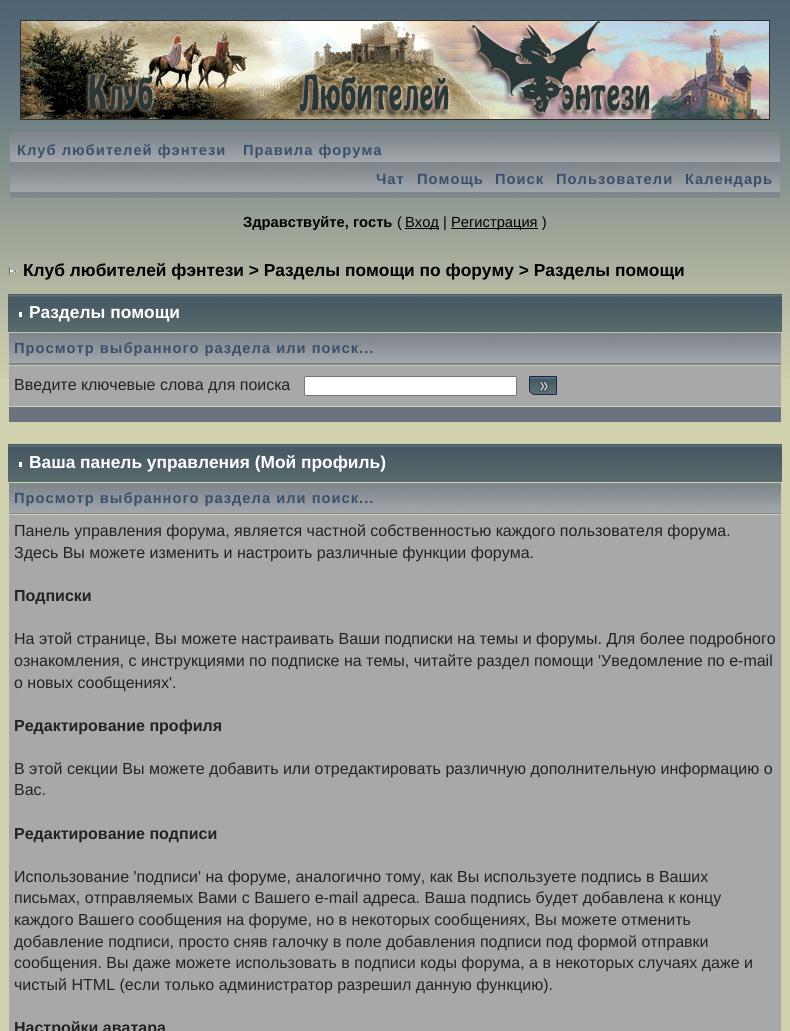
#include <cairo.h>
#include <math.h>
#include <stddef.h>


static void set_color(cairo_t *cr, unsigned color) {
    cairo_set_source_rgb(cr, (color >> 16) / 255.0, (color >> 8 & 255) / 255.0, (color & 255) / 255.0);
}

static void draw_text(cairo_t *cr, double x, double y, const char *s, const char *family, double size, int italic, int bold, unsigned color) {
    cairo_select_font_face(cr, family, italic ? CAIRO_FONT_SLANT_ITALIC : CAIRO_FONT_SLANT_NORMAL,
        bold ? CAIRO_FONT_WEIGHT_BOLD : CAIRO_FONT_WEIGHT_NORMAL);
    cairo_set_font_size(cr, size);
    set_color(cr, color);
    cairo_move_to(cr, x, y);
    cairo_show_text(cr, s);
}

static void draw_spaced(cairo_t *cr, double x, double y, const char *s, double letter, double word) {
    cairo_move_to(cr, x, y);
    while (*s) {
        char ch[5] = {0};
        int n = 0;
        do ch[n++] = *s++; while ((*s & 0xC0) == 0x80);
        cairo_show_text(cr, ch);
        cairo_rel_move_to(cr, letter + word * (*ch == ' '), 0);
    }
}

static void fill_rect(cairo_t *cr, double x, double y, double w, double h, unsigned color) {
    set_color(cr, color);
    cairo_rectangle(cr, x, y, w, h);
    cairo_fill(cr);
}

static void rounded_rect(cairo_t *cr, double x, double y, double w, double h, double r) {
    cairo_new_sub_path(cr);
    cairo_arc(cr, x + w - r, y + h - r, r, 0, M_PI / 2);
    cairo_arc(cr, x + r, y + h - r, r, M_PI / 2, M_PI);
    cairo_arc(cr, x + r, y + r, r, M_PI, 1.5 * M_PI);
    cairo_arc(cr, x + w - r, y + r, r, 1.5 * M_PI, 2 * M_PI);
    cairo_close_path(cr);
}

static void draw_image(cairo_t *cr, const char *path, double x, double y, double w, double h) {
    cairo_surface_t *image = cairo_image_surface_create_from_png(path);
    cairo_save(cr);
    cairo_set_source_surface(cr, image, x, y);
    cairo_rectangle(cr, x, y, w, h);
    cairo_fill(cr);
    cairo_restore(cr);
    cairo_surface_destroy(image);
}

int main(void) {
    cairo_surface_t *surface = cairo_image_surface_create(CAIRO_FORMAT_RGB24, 790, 1031);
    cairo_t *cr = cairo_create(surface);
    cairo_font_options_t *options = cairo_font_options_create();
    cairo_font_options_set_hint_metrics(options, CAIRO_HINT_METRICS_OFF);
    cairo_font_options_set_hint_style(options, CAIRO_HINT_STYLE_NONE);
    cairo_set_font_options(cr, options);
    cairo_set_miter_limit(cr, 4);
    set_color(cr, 0xD1D0AF);
    cairo_paint(cr);
    draw_image(cr, "assets/img1.png", 0, 0, 790, 379);
    draw_image(cr, "assets/img2.png", 20, 20, 750, 100);
    draw_image(cr, "assets/img3.png", 10, 132, 770, 66);
    cairo_select_font_face(cr, "Liberation Sans", CAIRO_FONT_SLANT_NORMAL, CAIRO_FONT_WEIGHT_BOLD);
    cairo_set_font_size(cr, 14.7);
    set_color(cr, 0x3A4F6C);
    draw_spaced(cr, 17, 155, "Клуб любителей фэнтези", 1, 0);
    draw_spaced(cr, 243, 155, "Правила форума", 1, 0);
    draw_spaced(cr, 376, 184, "Чат", 1, 0);
    draw_spaced(cr, 417, 184, "Помощь", 1, 0);
    draw_spaced(cr, 495, 184, "Поиск", 1, 0);
    draw_spaced(cr, 556, 184, "Пользователи", 1, 0);
    draw_spaced(cr, 685, 184, "Календарь", 1, 0);
    draw_text(cr, 243, 227, "Здравствуйте, гость", "Liberation Sans", 14.7, 0, 1, 0x000000);
    draw_text(cr, 397, 227, "(", "Liberation Sans", 14.7, 0, 0, 0x000000);
    fill_rect(cr, 405, 228, 34, 1, 0x000000);
    draw_text(cr, 405, 227, "Вход |", "Liberation Sans", 14.7, 0, 0, 0x000000);
    fill_rect(cr, 451, 228, 87, 1, 0x000000);
    draw_text(cr, 451, 227, "Регистрация )", "Liberation Sans", 14.7, 0, 0, 0x000000);
    draw_image(cr, "assets/img4.png", 9, 267, 8, 8);
    draw_text(cr, 23, 276, "Клуб любителей фэнтези > Разделы помощи по форуму > Разделы помощи", "Liberation Sans", 17.35, 0, 1, 0x000000);
    draw_image(cr, "assets/img5.png", 8, 294, 774, 38);
    fill_rect(cr, 19, 312, 3, 5, 0xFFFFFF);
    draw_text(cr, 29, 318, "Разделы помощи", "Liberation Sans", 17.35, 0, 1, 0xFFFFFF);
    draw_image(cr, "assets/img6.png", 9, 333, 772, 32);
    cairo_set_font_size(cr, 14.7);
    set_color(cr, 0x3A4F6C);
    draw_spaced(cr, 14, 353, "Просмотр выбранного раздела или поиск...", 1, 0);
    fill_rect(cr, 9, 366, 772, 40, 0xA8A8A8);
    draw_text(cr, 14, 390, "Введите ключевые слова для поиска", "Liberation Sans", 16, 0, 0, 0x222222);
    set_color(cr, 0xFFFFFF);
    rounded_rect(cr, 304.5, 376.5, 212, 19, 1.5);
    cairo_fill_preserve(cr);
    set_color(cr, 0x767676);
    cairo_set_line_width(cr, 1);
    cairo_stroke(cr);
    draw_image(cr, "assets/img7.png", 529, 376, 28, 19);
    fill_rect(cr, 9, 407, 772, 15, 0x6A7480);
    draw_image(cr, "assets/img5.png", 8, 444, 774, 38);
    fill_rect(cr, 19, 462, 3, 5, 0xFFFFFF);
    draw_text(cr, 29, 468, "Ваша панель управления (Мой профиль)", "Liberation Sans", 17.35, 0, 1, 0xFFFFFF);
    draw_image(cr, "assets/img8.png", 9, 483, 772, 31);
    cairo_set_font_size(cr, 14.7);
    set_color(cr, 0x3A4F6C);
    draw_spaced(cr, 14, 503, "Просмотр выбранного раздела или поиск...", 1, 0);
    fill_rect(cr, 9, 515, 772, 516, 0xA8A8A8);
    draw_text(cr, 14, 536, "Панель управления форума, является частной собственностью каждого пользователя форума.", "Liberation Sans", 16, 0, 0, 0x222222);
    draw_text(cr, 14, 558, "Здесь Вы можете изменить и настроить различные функции форума.", "Liberation Sans", 16, 0, 0, 0x222222);
    draw_text(cr, 14, 601, "Подписки", "Liberation Sans", 16, 0, 1, 0x222222);
    draw_text(cr, 14, 644, "На этой странице, Вы можете настраивать Ваши подписки на темы и форумы. Для более подробного", "Liberation Sans", 16, 0, 0, 0x222222);
    draw_text(cr, 14, 666, "ознакомления, с инструкциями по подписке на темы, читайте раздел помощи 'Уведомление по e-mail", "Liberation Sans", 16, 0, 0, 0x222222);
    draw_text(cr, 14, 688, "о новых сообщениях'.", "Liberation Sans", 16, 0, 0, 0x222222);
    draw_text(cr, 14, 731, "Редактирование профиля", "Liberation Sans", 16, 0, 1, 0x222222);
    draw_text(cr, 14, 774, "В этой секции Вы можете добавить или отредактировать различную дополнительную информацию о", "Liberation Sans", 16, 0, 0, 0x222222);
    draw_text(cr, 14, 795, "Вас.", "Liberation Sans", 16, 0, 0, 0x222222);
    draw_text(cr, 14, 839, "Редактирование подписи", "Liberation Sans", 16, 0, 1, 0x222222);
    draw_text(cr, 14, 882, "Использование 'подписи' на форуме, аналогично тому, как Вы используете подпись в Ваших", "Liberation Sans", 16, 0, 0, 0x222222);
    draw_text(cr, 14, 903, "письмах, отправляемых Вами с Вашего e-mail адреса. Ваша подпись будет добавлена к концу", "Liberation Sans", 16, 0, 0, 0x222222);
    draw_text(cr, 14, 925, "каждого Вашего сообщения на форуме, но в некоторых сообщениях, Вы можете отменить", "Liberation Sans", 16, 0, 0, 0x222222);
    draw_text(cr, 14, 947, "добавление подписи, просто сняв галочку в поле добавления подписи под формой отправки", "Liberation Sans", 16, 0, 0, 0x222222);
    draw_text(cr, 14, 968, "сообщения. Вы даже можете использовать в подписи коды форума, а в некоторых случаях даже и", "Liberation Sans", 16, 0, 0, 0x222222);
    draw_text(cr, 14, 990, "чистый HTML (если только администратор разрешил данную функцию).", "Liberation Sans", 16, 0, 0, 0x222222);
    draw_text(cr, 14, 1033, "Настройки аватара", "Liberation Sans", 16, 0, 1, 0x222222);
    cairo_surface_write_to_png(surface, "output.png");
    cairo_font_options_destroy(options);
    cairo_destroy(cr);
    cairo_surface_destroy(surface);
    return 0;
}
